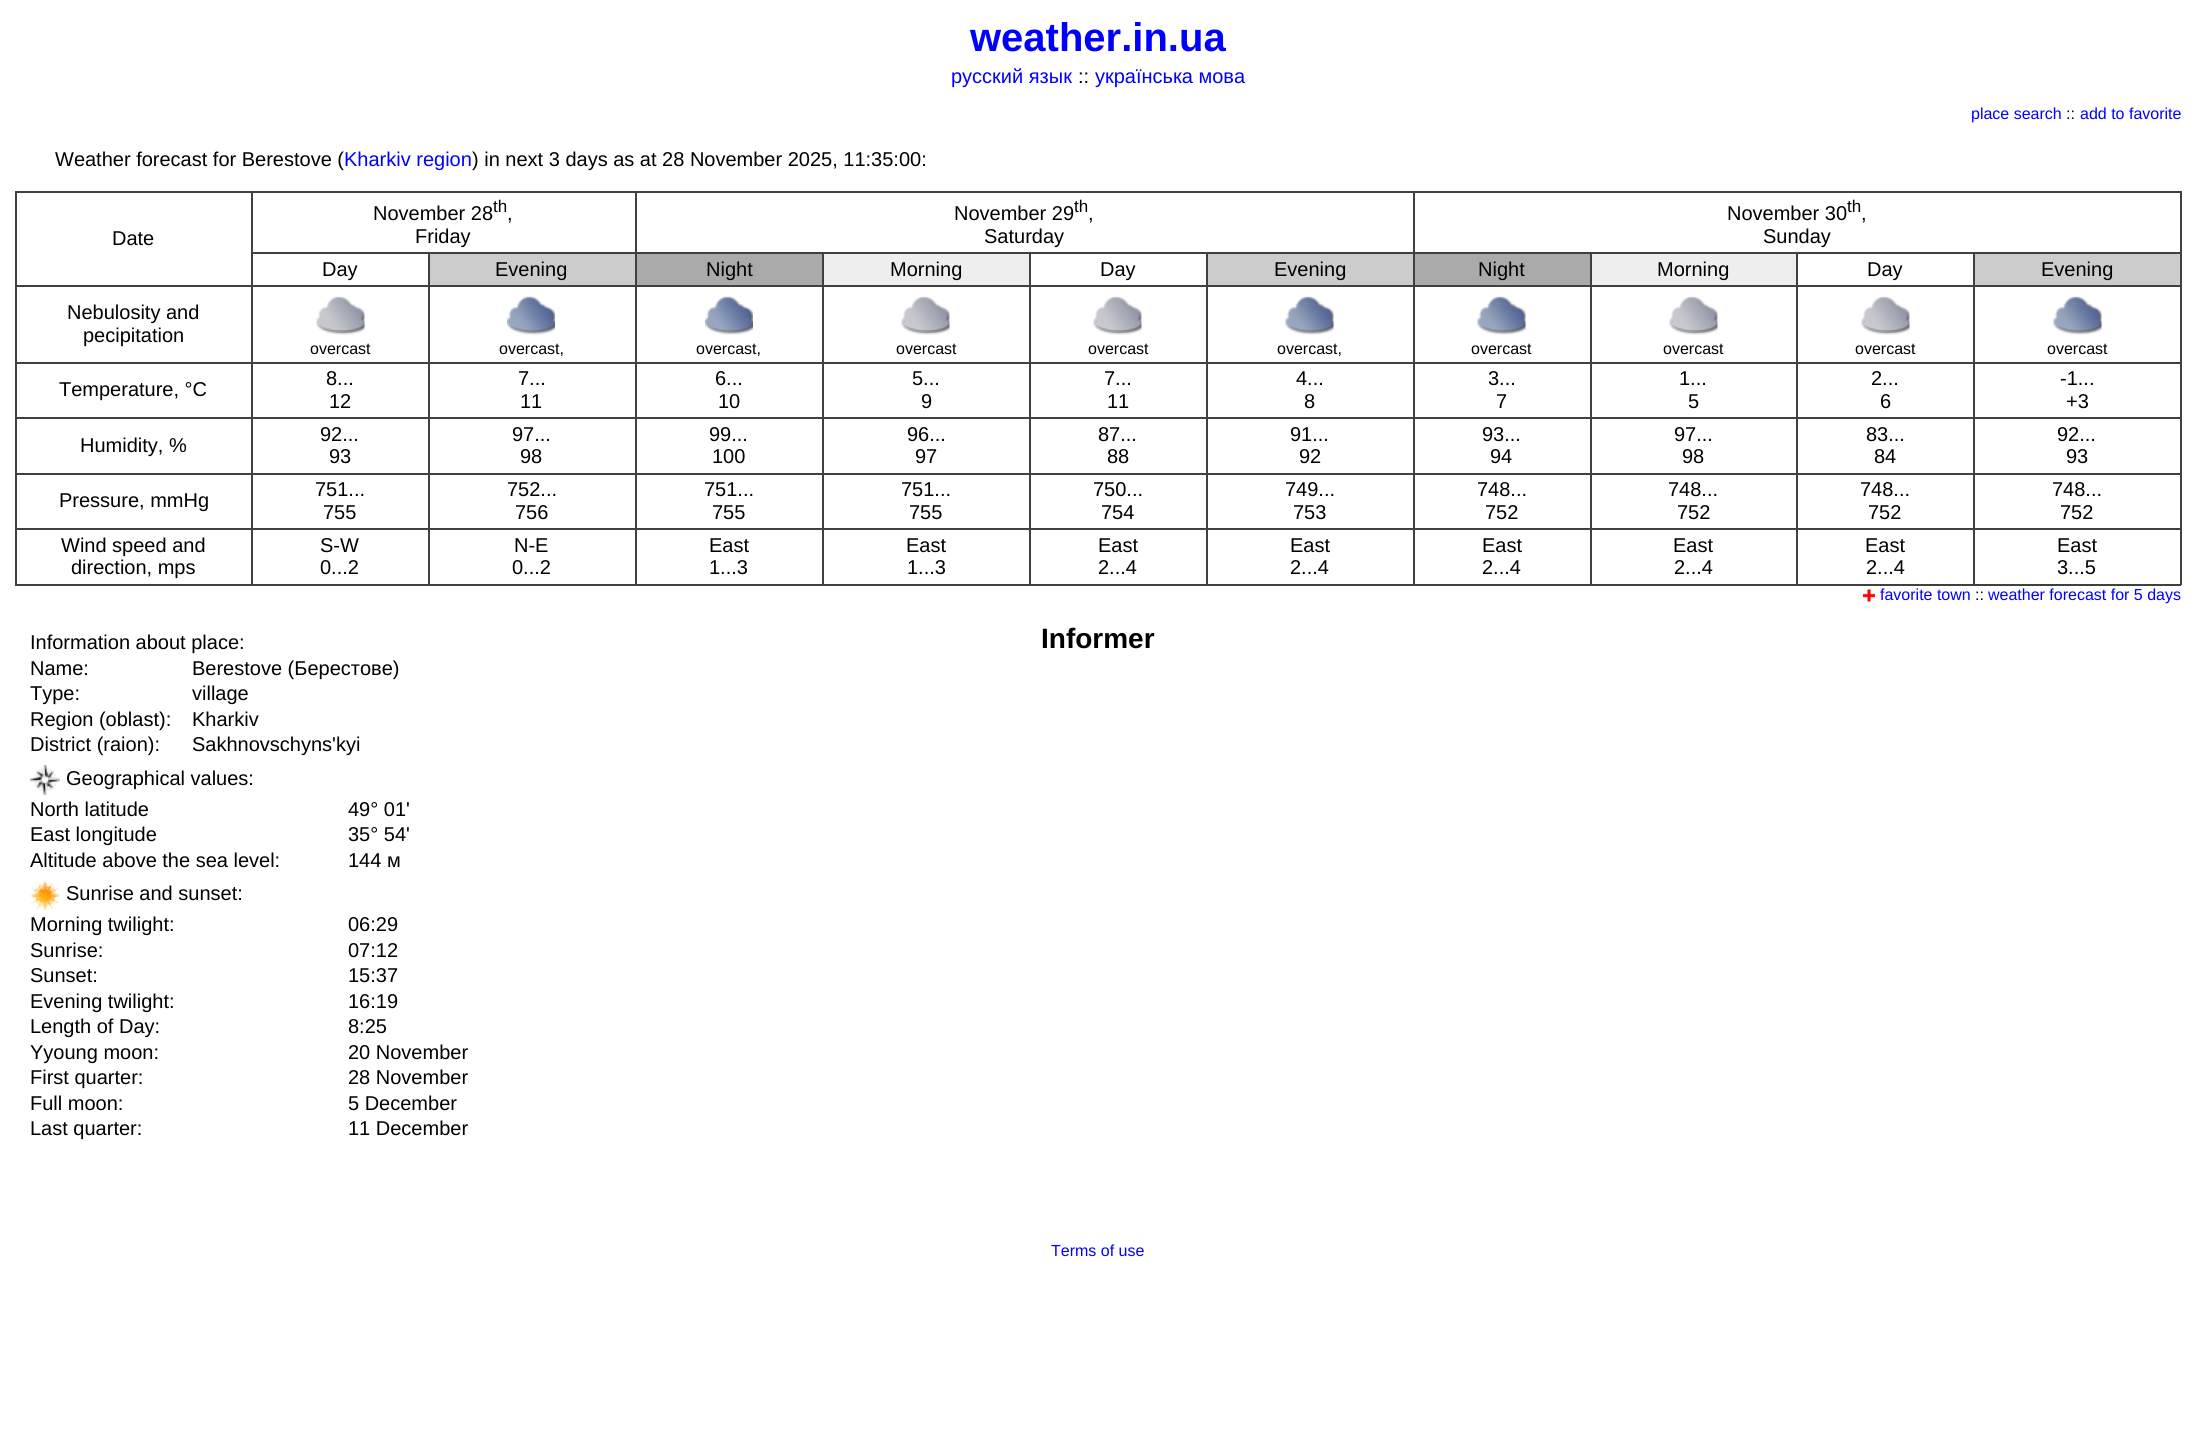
#include <cairo.h>
#include <math.h>
#include <stddef.h>


static void set_color(cairo_t *cr, unsigned color) {
    cairo_set_source_rgb(cr, (color >> 16) / 255.0, (color >> 8 & 255) / 255.0, (color & 255) / 255.0);
}

static void draw_text(cairo_t *cr, double x, double y, const char *s, const char *family, double size, int italic, int bold, unsigned color) {
    cairo_select_font_face(cr, family, italic ? CAIRO_FONT_SLANT_ITALIC : CAIRO_FONT_SLANT_NORMAL,
        bold ? CAIRO_FONT_WEIGHT_BOLD : CAIRO_FONT_WEIGHT_NORMAL);
    cairo_set_font_size(cr, size);
    set_color(cr, color);
    cairo_move_to(cr, x, y);
    cairo_show_text(cr, s);
}

static void fill_rect(cairo_t *cr, double x, double y, double w, double h, unsigned color) {
    set_color(cr, color);
    cairo_rectangle(cr, x, y, w, h);
    cairo_fill(cr);
}

static void draw_image(cairo_t *cr, const char *path, double x, double y, double w, double h) {
    cairo_surface_t *image = cairo_image_surface_create_from_png(path);
    cairo_save(cr);
    cairo_set_source_surface(cr, image, x, y);
    cairo_rectangle(cr, x, y, w, h);
    cairo_fill(cr);
    cairo_restore(cr);
    cairo_surface_destroy(image);
}

int main(void) {
    cairo_surface_t *surface = cairo_image_surface_create(CAIRO_FORMAT_RGB24, 2195, 1433);
    cairo_t *cr = cairo_create(surface);
    cairo_font_options_t *options = cairo_font_options_create();
    cairo_font_options_set_hint_metrics(options, CAIRO_HINT_METRICS_OFF);
    cairo_font_options_set_hint_style(options, CAIRO_HINT_STYLE_NONE);
    cairo_set_font_options(cr, options);
    cairo_set_miter_limit(cr, 4);
    set_color(cr, 0xFFFFFF);
    cairo_paint(cr);
    draw_text(cr, 970, 51, "weather.in.ua", "Liberation Sans", 40, 0, 1, 0x0000FF);
    draw_text(cr, 951, 83, "русский язык", "Liberation Sans", 20, 0, 0, 0x0000FF);
    draw_text(cr, 1078, 83, "::", "Liberation Sans", 20, 0, 0, 0x000000);
    draw_text(cr, 1095, 83, "українська мова", "Liberation Sans", 20, 0, 0, 0x0000FF);
    draw_text(cr, 1971, 119, "place search", "Liberation Sans", 16, 0, 0, 0x0000FF);
    draw_text(cr, 2066, 119, "::", "Liberation Sans", 16, 0, 0, 0x000000);
    draw_text(cr, 2080, 119, "add to favorite", "Liberation Sans", 16, 0, 0, 0x0000FF);
    draw_text(cr, 55, 166, "Weather forecast for Berestove (", "Liberation Sans", 20, 0, 0, 0x000000);
    draw_text(cr, 344, 166, "Kharkiv region", "Liberation Sans", 20, 0, 0, 0x0000FF);
    draw_text(cr, 472, 166, ") in next 3 days as at 28 November 2025, 11:35:00:", "Liberation Sans", 20, 0, 0, 0x000000);
    fill_rect(cr, 1413, 191, 768, 2, 0x404040);
    fill_rect(cr, 1973, 252, 208, 2, 0x404040);
    fill_rect(cr, 1973, 285, 208, 2, 0x404040);
    fill_rect(cr, 1973, 362, 208, 2, 0x404040);
    fill_rect(cr, 1973, 417, 208, 2, 0x404040);
    fill_rect(cr, 1973, 473, 208, 2, 0x404040);
    fill_rect(cr, 1973, 528, 208, 2, 0x404040);
    fill_rect(cr, 2180, 528, 2, 57, 0x404040);
    fill_rect(cr, 1973, 584, 208, 2, 0x404040);
    fill_rect(cr, 1973, 528, 2, 57, 0x404040);
    fill_rect(cr, 1796, 528, 178, 2, 0x404040);
    fill_rect(cr, 1973, 473, 2, 57, 0x404040);
    fill_rect(cr, 1796, 473, 178, 2, 0x404040);
    fill_rect(cr, 1973, 417, 2, 57, 0x404040);
    fill_rect(cr, 1796, 417, 178, 2, 0x404040);
    fill_rect(cr, 1973, 362, 2, 57, 0x404040);
    fill_rect(cr, 1796, 362, 178, 2, 0x404040);
    fill_rect(cr, 1973, 285, 2, 78, 0x404040);
    fill_rect(cr, 1796, 285, 178, 2, 0x404040);
    fill_rect(cr, 1973, 252, 2, 35, 0x404040);
    fill_rect(cr, 1796, 252, 178, 2, 0x404040);
    fill_rect(cr, 1796, 584, 178, 2, 0x404040);
    fill_rect(cr, 1796, 528, 2, 57, 0x404040);
    fill_rect(cr, 1590, 528, 207, 2, 0x404040);
    fill_rect(cr, 1796, 473, 2, 57, 0x404040);
    fill_rect(cr, 1590, 473, 207, 2, 0x404040);
    fill_rect(cr, 1796, 417, 2, 57, 0x404040);
    fill_rect(cr, 1590, 417, 207, 2, 0x404040);
    fill_rect(cr, 1796, 362, 2, 57, 0x404040);
    fill_rect(cr, 1590, 362, 207, 2, 0x404040);
    fill_rect(cr, 1796, 285, 2, 78, 0x404040);
    fill_rect(cr, 1590, 285, 207, 2, 0x404040);
    fill_rect(cr, 1796, 252, 2, 35, 0x404040);
    fill_rect(cr, 1590, 252, 207, 2, 0x404040);
    fill_rect(cr, 1590, 584, 207, 2, 0x404040);
    fill_rect(cr, 1590, 528, 2, 57, 0x404040);
    fill_rect(cr, 1413, 528, 179, 2, 0x404040);
    fill_rect(cr, 1590, 473, 2, 57, 0x404040);
    fill_rect(cr, 1413, 473, 179, 2, 0x404040);
    fill_rect(cr, 1590, 417, 2, 57, 0x404040);
    fill_rect(cr, 1413, 417, 179, 2, 0x404040);
    fill_rect(cr, 1590, 362, 2, 57, 0x404040);
    fill_rect(cr, 1413, 362, 179, 2, 0x404040);
    fill_rect(cr, 1590, 285, 2, 78, 0x404040);
    fill_rect(cr, 1413, 285, 179, 2, 0x404040);
    fill_rect(cr, 1590, 252, 2, 35, 0x404040);
    fill_rect(cr, 1413, 252, 179, 2, 0x404040);
    fill_rect(cr, 1413, 584, 179, 2, 0x404040);
    fill_rect(cr, 1413, 528, 2, 57, 0x404040);
    fill_rect(cr, 1206, 528, 209, 2, 0x404040);
    fill_rect(cr, 1413, 473, 2, 57, 0x404040);
    fill_rect(cr, 1206, 473, 209, 2, 0x404040);
    fill_rect(cr, 1413, 417, 2, 57, 0x404040);
    fill_rect(cr, 1206, 417, 209, 2, 0x404040);
    fill_rect(cr, 1413, 362, 2, 57, 0x404040);
    fill_rect(cr, 1206, 362, 209, 2, 0x404040);
    fill_rect(cr, 1413, 285, 2, 78, 0x404040);
    fill_rect(cr, 1206, 285, 209, 2, 0x404040);
    fill_rect(cr, 1413, 252, 2, 35, 0x404040);
    fill_rect(cr, 1206, 252, 209, 2, 0x404040);
    fill_rect(cr, 1413, 191, 2, 63, 0x404040);
    fill_rect(cr, 635, 191, 780, 2, 0x404040);
    fill_rect(cr, 1206, 584, 209, 2, 0x404040);
    fill_rect(cr, 1206, 528, 2, 57, 0x404040);
    fill_rect(cr, 1029, 528, 179, 2, 0x404040);
    fill_rect(cr, 1206, 473, 2, 57, 0x404040);
    fill_rect(cr, 1029, 473, 179, 2, 0x404040);
    fill_rect(cr, 1206, 417, 2, 57, 0x404040);
    fill_rect(cr, 1029, 417, 179, 2, 0x404040);
    fill_rect(cr, 1206, 362, 2, 57, 0x404040);
    fill_rect(cr, 1029, 362, 179, 2, 0x404040);
    fill_rect(cr, 1206, 285, 2, 78, 0x404040);
    fill_rect(cr, 1029, 285, 179, 2, 0x404040);
    fill_rect(cr, 1206, 252, 2, 35, 0x404040);
    fill_rect(cr, 1029, 252, 179, 2, 0x404040);
    fill_rect(cr, 1029, 584, 179, 2, 0x404040);
    fill_rect(cr, 1029, 528, 2, 57, 0x404040);
    fill_rect(cr, 822, 528, 209, 2, 0x404040);
    fill_rect(cr, 1029, 473, 2, 57, 0x404040);
    fill_rect(cr, 822, 473, 209, 2, 0x404040);
    fill_rect(cr, 1029, 417, 2, 57, 0x404040);
    fill_rect(cr, 822, 417, 209, 2, 0x404040);
    fill_rect(cr, 1029, 362, 2, 57, 0x404040);
    fill_rect(cr, 822, 362, 209, 2, 0x404040);
    fill_rect(cr, 1029, 285, 2, 78, 0x404040);
    fill_rect(cr, 822, 285, 209, 2, 0x404040);
    fill_rect(cr, 1029, 252, 2, 35, 0x404040);
    fill_rect(cr, 822, 252, 209, 2, 0x404040);
    fill_rect(cr, 822, 584, 209, 2, 0x404040);
    fill_rect(cr, 822, 528, 2, 57, 0x404040);
    fill_rect(cr, 635, 528, 189, 2, 0x404040);
    fill_rect(cr, 822, 473, 2, 57, 0x404040);
    fill_rect(cr, 635, 473, 189, 2, 0x404040);
    fill_rect(cr, 822, 417, 2, 57, 0x404040);
    fill_rect(cr, 635, 417, 189, 2, 0x404040);
    fill_rect(cr, 822, 362, 2, 57, 0x404040);
    fill_rect(cr, 635, 362, 189, 2, 0x404040);
    fill_rect(cr, 822, 285, 2, 78, 0x404040);
    fill_rect(cr, 635, 285, 189, 2, 0x404040);
    fill_rect(cr, 822, 252, 2, 35, 0x404040);
    fill_rect(cr, 635, 252, 189, 2, 0x404040);
    fill_rect(cr, 635, 584, 189, 2, 0x404040);
    fill_rect(cr, 635, 528, 2, 57, 0x404040);
    fill_rect(cr, 428, 528, 208, 2, 0x404040);
    fill_rect(cr, 635, 473, 2, 57, 0x404040);
    fill_rect(cr, 428, 473, 208, 2, 0x404040);
    fill_rect(cr, 635, 417, 2, 57, 0x404040);
    fill_rect(cr, 428, 417, 208, 2, 0x404040);
    fill_rect(cr, 635, 362, 2, 57, 0x404040);
    fill_rect(cr, 428, 362, 208, 2, 0x404040);
    fill_rect(cr, 635, 285, 2, 78, 0x404040);
    fill_rect(cr, 428, 285, 208, 2, 0x404040);
    fill_rect(cr, 635, 252, 2, 35, 0x404040);
    fill_rect(cr, 428, 252, 208, 2, 0x404040);
    fill_rect(cr, 635, 191, 2, 63, 0x404040);
    fill_rect(cr, 251, 191, 385, 2, 0x404040);
    fill_rect(cr, 428, 584, 208, 2, 0x404040);
    fill_rect(cr, 428, 528, 2, 57, 0x404040);
    fill_rect(cr, 251, 528, 178, 2, 0x404040);
    fill_rect(cr, 428, 473, 2, 57, 0x404040);
    fill_rect(cr, 251, 473, 178, 2, 0x404040);
    fill_rect(cr, 428, 417, 2, 57, 0x404040);
    fill_rect(cr, 251, 417, 178, 2, 0x404040);
    fill_rect(cr, 428, 362, 2, 57, 0x404040);
    fill_rect(cr, 251, 362, 178, 2, 0x404040);
    fill_rect(cr, 428, 285, 2, 78, 0x404040);
    fill_rect(cr, 251, 285, 178, 2, 0x404040);
    fill_rect(cr, 428, 252, 2, 35, 0x404040);
    fill_rect(cr, 251, 252, 178, 2, 0x404040);
    fill_rect(cr, 251, 584, 178, 2, 0x404040);
    fill_rect(cr, 251, 528, 2, 57, 0x404040);
    fill_rect(cr, 15, 528, 237, 2, 0x404040);
    fill_rect(cr, 251, 473, 2, 57, 0x404040);
    fill_rect(cr, 15, 473, 237, 2, 0x404040);
    fill_rect(cr, 251, 417, 2, 57, 0x404040);
    fill_rect(cr, 15, 417, 237, 2, 0x404040);
    fill_rect(cr, 251, 362, 2, 57, 0x404040);
    fill_rect(cr, 15, 362, 237, 2, 0x404040);
    fill_rect(cr, 251, 285, 2, 78, 0x404040);
    fill_rect(cr, 15, 285, 237, 2, 0x404040);
    fill_rect(cr, 251, 252, 2, 35, 0x404040);
    fill_rect(cr, 251, 191, 2, 63, 0x404040);
    fill_rect(cr, 15, 191, 237, 2, 0x404040);
    fill_rect(cr, 15, 584, 237, 2, 0x404040);
    fill_rect(cr, 15, 528, 2, 57, 0x404040);
    fill_rect(cr, 15, 473, 2, 57, 0x404040);
    fill_rect(cr, 15, 417, 2, 57, 0x404040);
    fill_rect(cr, 15, 362, 2, 57, 0x404040);
    fill_rect(cr, 15, 285, 2, 78, 0x404040);
    fill_rect(cr, 15, 191, 2, 96, 0x404040);
    draw_text(cr, 112, 245, "Date", "Liberation Sans", 20, 0, 0, 0x000000);
    draw_text(cr, 373, 220, "November 28", "Liberation Sans", 20, 0, 0, 0x000000);
    draw_text(cr, 493, 212, "th", "Liberation Sans", 17, 0, 0, 0x000000);
    draw_text(cr, 507, 220, ",", "Liberation Sans", 20, 0, 0, 0x000000);
    draw_text(cr, 415, 243, "Friday", "Liberation Sans", 20, 0, 0, 0x000000);
    draw_text(cr, 954, 220, "November 29", "Liberation Sans", 20, 0, 0, 0x000000);
    draw_text(cr, 1074, 212, "th", "Liberation Sans", 17, 0, 0, 0x000000);
    draw_text(cr, 1088, 220, ",", "Liberation Sans", 20, 0, 0, 0x000000);
    draw_text(cr, 984, 243, "Saturday", "Liberation Sans", 20, 0, 0, 0x000000);
    fill_rect(cr, 2180, 473, 2, 57, 0x404040);
    fill_rect(cr, 2180, 417, 2, 57, 0x404040);
    fill_rect(cr, 2180, 362, 2, 57, 0x404040);
    fill_rect(cr, 2180, 285, 2, 78, 0x404040);
    fill_rect(cr, 2180, 252, 2, 35, 0x404040);
    fill_rect(cr, 2180, 191, 2, 63, 0x404040);
    draw_text(cr, 1727, 220, "November 30", "Liberation Sans", 20, 0, 0, 0x000000);
    draw_text(cr, 1847, 212, "th", "Liberation Sans", 17, 0, 0, 0x000000);
    draw_text(cr, 1861, 220, ",", "Liberation Sans", 20, 0, 0, 0x000000);
    draw_text(cr, 1763, 243, "Sunday", "Liberation Sans", 20, 0, 0, 0x000000);
    draw_text(cr, 322, 276, "Day", "Liberation Sans", 20, 0, 0, 0x000000);
    fill_rect(cr, 430, 254, 205, 31, 0xCCCCCC);
    draw_text(cr, 495, 276, "Evening", "Liberation Sans", 20, 0, 0, 0x000000);
    fill_rect(cr, 637, 254, 185, 31, 0xAAAAAA);
    draw_text(cr, 706, 276, "Night", "Liberation Sans", 20, 0, 0, 0x000000);
    fill_rect(cr, 824, 254, 205, 31, 0xEEEEEE);
    draw_text(cr, 890, 276, "Morning", "Liberation Sans", 20, 0, 0, 0x000000);
    draw_text(cr, 1100, 276, "Day", "Liberation Sans", 20, 0, 0, 0x000000);
    fill_rect(cr, 1208, 254, 205, 31, 0xCCCCCC);
    draw_text(cr, 1274, 276, "Evening", "Liberation Sans", 20, 0, 0, 0x000000);
    fill_rect(cr, 1415, 254, 175, 31, 0xAAAAAA);
    draw_text(cr, 1478, 276, "Night", "Liberation Sans", 20, 0, 0, 0x000000);
    fill_rect(cr, 1592, 254, 204, 31, 0xEEEEEE);
    draw_text(cr, 1657, 276, "Morning", "Liberation Sans", 20, 0, 0, 0x000000);
    draw_text(cr, 1867, 276, "Day", "Liberation Sans", 20, 0, 0, 0x000000);
    fill_rect(cr, 1975, 254, 205, 31, 0xCCCCCC);
    draw_text(cr, 2041, 276, "Evening", "Liberation Sans", 20, 0, 0, 0x000000);
    draw_text(cr, 67, 319, "Nebulosity and", "Liberation Sans", 20, 0, 0, 0x000000);
    draw_text(cr, 83, 342, "pecipitation", "Liberation Sans", 20, 0, 0, 0x000000);
    draw_image(cr, "assets/img1.png", 316, 296, 49, 39);
    draw_text(cr, 310, 354, "overcast", "Liberation Sans", 16, 0, 0, 0x000000);
    draw_image(cr, "assets/img2.png", 507, 296, 48, 39);
    draw_text(cr, 499, 354, "overcast,", "Liberation Sans", 16, 0, 0, 0x000000);
    draw_image(cr, "assets/img3.png", 705, 296, 48, 39);
    draw_text(cr, 696, 354, "overcast,", "Liberation Sans", 16, 0, 0, 0x000000);
    draw_image(cr, "assets/img1.png", 901, 296, 49, 39);
    draw_text(cr, 896, 354, "overcast", "Liberation Sans", 16, 0, 0, 0x000000);
    draw_image(cr, "assets/img1.png", 1093, 296, 49, 39);
    draw_text(cr, 1088, 354, "overcast", "Liberation Sans", 16, 0, 0, 0x000000);
    draw_image(cr, "assets/img4.png", 1285, 296, 49, 39);
    draw_text(cr, 1277, 354, "overcast,", "Liberation Sans", 16, 0, 0, 0x000000);
    draw_image(cr, "assets/img5.png", 1477, 296, 49, 39);
    draw_text(cr, 1471, 354, "overcast", "Liberation Sans", 16, 0, 0, 0x000000);
    draw_image(cr, "assets/img1.png", 1669, 296, 49, 39);
    draw_text(cr, 1663, 354, "overcast", "Liberation Sans", 16, 0, 0, 0x000000);
    draw_image(cr, "assets/img1.png", 1861, 296, 49, 39);
    draw_text(cr, 1855, 354, "overcast", "Liberation Sans", 16, 0, 0, 0x000000);
    draw_image(cr, "assets/img4.png", 2053, 296, 49, 39);
    draw_text(cr, 2047, 354, "overcast", "Liberation Sans", 16, 0, 0, 0x000000);
    draw_text(cr, 59, 396, "Temperature, °C", "Liberation Sans", 20, 0, 0, 0x000000);
    draw_text(cr, 326, 385, "8...", "Liberation Sans", 20, 0, 0, 0x000000);
    draw_text(cr, 329, 408, "12", "Liberation Sans", 20, 0, 0, 0x000000);
    draw_text(cr, 518, 385, "7...", "Liberation Sans", 20, 0, 0, 0x000000);
    draw_text(cr, 520, 408, "11", "Liberation Sans", 20, 0, 0, 0x000000);
    draw_text(cr, 715, 385, "6...", "Liberation Sans", 20, 0, 0, 0x000000);
    draw_text(cr, 718, 408, "10", "Liberation Sans", 20, 0, 0, 0x000000);
    draw_text(cr, 912, 385, "5...", "Liberation Sans", 20, 0, 0, 0x000000);
    draw_text(cr, 921, 408, "9", "Liberation Sans", 20, 0, 0, 0x000000);
    draw_text(cr, 1104, 385, "7...", "Liberation Sans", 20, 0, 0, 0x000000);
    draw_text(cr, 1107, 408, "11", "Liberation Sans", 20, 0, 0, 0x000000);
    draw_text(cr, 1296, 385, "4...", "Liberation Sans", 20, 0, 0, 0x000000);
    draw_text(cr, 1304, 408, "8", "Liberation Sans", 20, 0, 0, 0x000000);
    draw_text(cr, 1488, 385, "3...", "Liberation Sans", 20, 0, 0, 0x000000);
    draw_text(cr, 1496, 408, "7", "Liberation Sans", 20, 0, 0, 0x000000);
    draw_text(cr, 1679, 385, "1...", "Liberation Sans", 20, 0, 0, 0x000000);
    draw_text(cr, 1688, 408, "5", "Liberation Sans", 20, 0, 0, 0x000000);
    draw_text(cr, 1871, 385, "2...", "Liberation Sans", 20, 0, 0, 0x000000);
    draw_text(cr, 1880, 408, "6", "Liberation Sans", 20, 0, 0, 0x000000);
    draw_text(cr, 2060, 385, "-1...", "Liberation Sans", 20, 0, 0, 0x000000);
    draw_text(cr, 2066, 408, "+3", "Liberation Sans", 20, 0, 0, 0x000000);
    draw_text(cr, 80, 452, "Humidity, %", "Liberation Sans", 20, 0, 0, 0x000000);
    draw_text(cr, 320, 441, "92...", "Liberation Sans", 20, 0, 0, 0x000000);
    draw_text(cr, 329, 463, "93", "Liberation Sans", 20, 0, 0, 0x000000);
    draw_text(cr, 512, 441, "97...", "Liberation Sans", 20, 0, 0, 0x000000);
    draw_text(cr, 520, 463, "98", "Liberation Sans", 20, 0, 0, 0x000000);
    draw_text(cr, 709, 441, "99...", "Liberation Sans", 20, 0, 0, 0x000000);
    draw_text(cr, 712, 463, "100", "Liberation Sans", 20, 0, 0, 0x000000);
    draw_text(cr, 907, 441, "96...", "Liberation Sans", 20, 0, 0, 0x000000);
    draw_text(cr, 915, 463, "97", "Liberation Sans", 20, 0, 0, 0x000000);
    draw_text(cr, 1098, 441, "87...", "Liberation Sans", 20, 0, 0, 0x000000);
    draw_text(cr, 1107, 463, "88", "Liberation Sans", 20, 0, 0, 0x000000);
    draw_text(cr, 1290, 441, "91...", "Liberation Sans", 20, 0, 0, 0x000000);
    draw_text(cr, 1299, 463, "92", "Liberation Sans", 20, 0, 0, 0x000000);
    draw_text(cr, 1482, 441, "93...", "Liberation Sans", 20, 0, 0, 0x000000);
    draw_text(cr, 1490, 463, "94", "Liberation Sans", 20, 0, 0, 0x000000);
    draw_text(cr, 1674, 441, "97...", "Liberation Sans", 20, 0, 0, 0x000000);
    draw_text(cr, 1682, 463, "98", "Liberation Sans", 20, 0, 0, 0x000000);
    draw_text(cr, 1866, 441, "83...", "Liberation Sans", 20, 0, 0, 0x000000);
    draw_text(cr, 1874, 463, "84", "Liberation Sans", 20, 0, 0, 0x000000);
    draw_text(cr, 2057, 441, "92...", "Liberation Sans", 20, 0, 0, 0x000000);
    draw_text(cr, 2066, 463, "93", "Liberation Sans", 20, 0, 0, 0x000000);
    draw_text(cr, 59, 507, "Pressure, mmHg", "Liberation Sans", 20, 0, 0, 0x000000);
    draw_text(cr, 315, 496, "751...", "Liberation Sans", 20, 0, 0, 0x000000);
    draw_text(cr, 323, 519, "755", "Liberation Sans", 20, 0, 0, 0x000000);
    draw_text(cr, 507, 496, "752...", "Liberation Sans", 20, 0, 0, 0x000000);
    draw_text(cr, 515, 519, "756", "Liberation Sans", 20, 0, 0, 0x000000);
    draw_text(cr, 704, 496, "751...", "Liberation Sans", 20, 0, 0, 0x000000);
    draw_text(cr, 712, 519, "755", "Liberation Sans", 20, 0, 0, 0x000000);
    draw_text(cr, 901, 496, "751...", "Liberation Sans", 20, 0, 0, 0x000000);
    draw_text(cr, 909, 519, "755", "Liberation Sans", 20, 0, 0, 0x000000);
    draw_text(cr, 1093, 496, "750...", "Liberation Sans", 20, 0, 0, 0x000000);
    draw_text(cr, 1101, 519, "754", "Liberation Sans", 20, 0, 0, 0x000000);
    draw_text(cr, 1285, 496, "749...", "Liberation Sans", 20, 0, 0, 0x000000);
    draw_text(cr, 1293, 519, "753", "Liberation Sans", 20, 0, 0, 0x000000);
    draw_text(cr, 1477, 496, "748...", "Liberation Sans", 20, 0, 0, 0x000000);
    draw_text(cr, 1485, 519, "752", "Liberation Sans", 20, 0, 0, 0x000000);
    draw_text(cr, 1668, 496, "748...", "Liberation Sans", 20, 0, 0, 0x000000);
    draw_text(cr, 1677, 519, "752", "Liberation Sans", 20, 0, 0, 0x000000);
    draw_text(cr, 1860, 496, "748...", "Liberation Sans", 20, 0, 0, 0x000000);
    draw_text(cr, 1868, 519, "752", "Liberation Sans", 20, 0, 0, 0x000000);
    draw_text(cr, 2052, 496, "748...", "Liberation Sans", 20, 0, 0, 0x000000);
    draw_text(cr, 2060, 519, "752", "Liberation Sans", 20, 0, 0, 0x000000);
    draw_text(cr, 61, 552, "Wind speed and", "Liberation Sans", 20, 0, 0, 0x000000);
    draw_text(cr, 71, 574, "direction, mps", "Liberation Sans", 20, 0, 0, 0x000000);
    draw_text(cr, 320, 552, "S-W", "Liberation Sans", 20, 0, 0, 0x000000);
    draw_text(cr, 320, 574, "0...2", "Liberation Sans", 20, 0, 0, 0x000000);
    draw_text(cr, 514, 552, "N-E", "Liberation Sans", 20, 0, 0, 0x000000);
    draw_text(cr, 512, 574, "0...2", "Liberation Sans", 20, 0, 0, 0x000000);
    draw_text(cr, 709, 552, "East", "Liberation Sans", 20, 0, 0, 0x000000);
    draw_text(cr, 709, 574, "1...3", "Liberation Sans", 20, 0, 0, 0x000000);
    draw_text(cr, 906, 552, "East", "Liberation Sans", 20, 0, 0, 0x000000);
    draw_text(cr, 907, 574, "1...3", "Liberation Sans", 20, 0, 0, 0x000000);
    draw_text(cr, 1098, 552, "East", "Liberation Sans", 20, 0, 0, 0x000000);
    draw_text(cr, 1098, 574, "2...4", "Liberation Sans", 20, 0, 0, 0x000000);
    draw_text(cr, 1290, 552, "East", "Liberation Sans", 20, 0, 0, 0x000000);
    draw_text(cr, 1290, 574, "2...4", "Liberation Sans", 20, 0, 0, 0x000000);
    draw_text(cr, 1482, 552, "East", "Liberation Sans", 20, 0, 0, 0x000000);
    draw_text(cr, 1482, 574, "2...4", "Liberation Sans", 20, 0, 0, 0x000000);
    draw_text(cr, 1673, 552, "East", "Liberation Sans", 20, 0, 0, 0x000000);
    draw_text(cr, 1674, 574, "2...4", "Liberation Sans", 20, 0, 0, 0x000000);
    draw_text(cr, 1865, 552, "East", "Liberation Sans", 20, 0, 0, 0x000000);
    draw_text(cr, 1866, 574, "2...4", "Liberation Sans", 20, 0, 0, 0x000000);
    draw_text(cr, 2057, 552, "East", "Liberation Sans", 20, 0, 0, 0x000000);
    draw_text(cr, 2057, 574, "3...5", "Liberation Sans", 20, 0, 0, 0x000000);
    draw_image(cr, "assets/img6.png", 1863, 589, 12, 13);
    draw_text(cr, 1880, 600, "favorite town", "Liberation Sans", 16, 0, 0, 0x0000FF);
    draw_text(cr, 1975, 600, "::", "Liberation Sans", 16, 0, 0, 0x000000);
    draw_text(cr, 1988, 600, "weather forecast for 5 days", "Liberation Sans", 16, 0, 0, 0x0000FF);
    draw_text(cr, 30, 649, "Information about place:", "Liberation Sans", 20, 0, 0, 0x000000);
    draw_text(cr, 30, 675, "Name:", "Liberation Sans", 20, 0, 0, 0x000000);
    draw_text(cr, 192, 675, "Berestove (Берестове)", "Liberation Sans", 20, 0, 0, 0x000000);
    draw_text(cr, 30, 700, "Type:", "Liberation Sans", 20, 0, 0, 0x000000);
    draw_text(cr, 192, 700, "village", "Liberation Sans", 20, 0, 0, 0x000000);
    draw_text(cr, 30, 726, "Region (oblast):", "Liberation Sans", 20, 0, 0, 0x000000);
    draw_text(cr, 192, 726, "Kharkiv", "Liberation Sans", 20, 0, 0, 0x000000);
    draw_text(cr, 30, 751, "District (raion):", "Liberation Sans", 20, 0, 0, 0x000000);
    draw_text(cr, 192, 751, "Sakhnovschyns'kyi", "Liberation Sans", 20, 0, 0, 0x000000);
    draw_image(cr, "assets/img7.png", 30, 765, 30, 30);
    draw_text(cr, 66, 785, "Geographical values:", "Liberation Sans", 20, 0, 0, 0x000000);
    draw_text(cr, 30, 816, "North latitude", "Liberation Sans", 20, 0, 0, 0x000000);
    draw_text(cr, 348, 816, "49° 01'", "Liberation Sans", 20, 0, 0, 0x000000);
    draw_text(cr, 30, 841, "East longitude", "Liberation Sans", 20, 0, 0, 0x000000);
    draw_text(cr, 348, 841, "35° 54'", "Liberation Sans", 20, 0, 0, 0x000000);
    draw_text(cr, 30, 867, "Altitude above the sea level:", "Liberation Sans", 20, 0, 0, 0x000000);
    draw_text(cr, 348, 867, "144 м", "Liberation Sans", 20, 0, 0, 0x000000);
    draw_image(cr, "assets/img8.png", 30, 880, 30, 31);
    draw_text(cr, 66, 900, "Sunrise and sunset:", "Liberation Sans", 20, 0, 0, 0x000000);
    draw_text(cr, 30, 931, "Morning twilight:", "Liberation Sans", 20, 0, 0, 0x000000);
    draw_text(cr, 348, 931, "06:29", "Liberation Sans", 20, 0, 0, 0x000000);
    draw_text(cr, 30, 957, "Sunrise:", "Liberation Sans", 20, 0, 0, 0x000000);
    draw_text(cr, 348, 957, "07:12", "Liberation Sans", 20, 0, 0, 0x000000);
    draw_text(cr, 30, 982, "Sunset:", "Liberation Sans", 20, 0, 0, 0x000000);
    draw_text(cr, 348, 982, "15:37", "Liberation Sans", 20, 0, 0, 0x000000);
    draw_text(cr, 30, 1008, "Evening twilight:", "Liberation Sans", 20, 0, 0, 0x000000);
    draw_text(cr, 348, 1008, "16:19", "Liberation Sans", 20, 0, 0, 0x000000);
    draw_text(cr, 30, 1033, "Length of Day:", "Liberation Sans", 20, 0, 0, 0x000000);
    draw_text(cr, 348, 1033, "8:25", "Liberation Sans", 20, 0, 0, 0x000000);
    draw_text(cr, 30, 1059, "Yyoung moon:", "Liberation Sans", 20, 0, 0, 0x000000);
    draw_text(cr, 348, 1059, "20 November", "Liberation Sans", 20, 0, 0, 0x000000);
    draw_text(cr, 30, 1084, "First quarter:", "Liberation Sans", 20, 0, 0, 0x000000);
    draw_text(cr, 348, 1084, "28 November", "Liberation Sans", 20, 0, 0, 0x000000);
    draw_text(cr, 30, 1110, "Full moon:", "Liberation Sans", 20, 0, 0, 0x000000);
    draw_text(cr, 348, 1110, "5 December", "Liberation Sans", 20, 0, 0, 0x000000);
    draw_text(cr, 30, 1135, "Last quarter:", "Liberation Sans", 20, 0, 0, 0x000000);
    draw_text(cr, 348, 1135, "11 December", "Liberation Sans", 20, 0, 0, 0x000000);
    draw_text(cr, 1041, 648, "Informer", "Liberation Sans", 28, 0, 1, 0x000000);
    draw_text(cr, 1051, 1256, "Terms of use", "Liberation Sans", 16, 0, 0, 0x0000FF);
    cairo_surface_write_to_png(surface, "output.png");
    cairo_font_options_destroy(options);
    cairo_destroy(cr);
    cairo_surface_destroy(surface);
    return 0;
}
